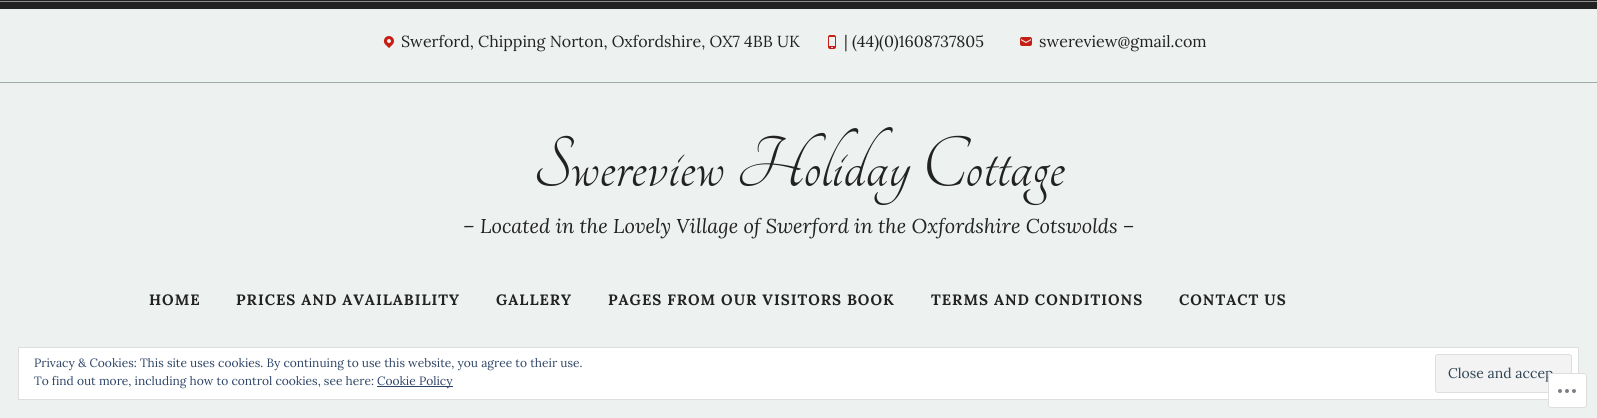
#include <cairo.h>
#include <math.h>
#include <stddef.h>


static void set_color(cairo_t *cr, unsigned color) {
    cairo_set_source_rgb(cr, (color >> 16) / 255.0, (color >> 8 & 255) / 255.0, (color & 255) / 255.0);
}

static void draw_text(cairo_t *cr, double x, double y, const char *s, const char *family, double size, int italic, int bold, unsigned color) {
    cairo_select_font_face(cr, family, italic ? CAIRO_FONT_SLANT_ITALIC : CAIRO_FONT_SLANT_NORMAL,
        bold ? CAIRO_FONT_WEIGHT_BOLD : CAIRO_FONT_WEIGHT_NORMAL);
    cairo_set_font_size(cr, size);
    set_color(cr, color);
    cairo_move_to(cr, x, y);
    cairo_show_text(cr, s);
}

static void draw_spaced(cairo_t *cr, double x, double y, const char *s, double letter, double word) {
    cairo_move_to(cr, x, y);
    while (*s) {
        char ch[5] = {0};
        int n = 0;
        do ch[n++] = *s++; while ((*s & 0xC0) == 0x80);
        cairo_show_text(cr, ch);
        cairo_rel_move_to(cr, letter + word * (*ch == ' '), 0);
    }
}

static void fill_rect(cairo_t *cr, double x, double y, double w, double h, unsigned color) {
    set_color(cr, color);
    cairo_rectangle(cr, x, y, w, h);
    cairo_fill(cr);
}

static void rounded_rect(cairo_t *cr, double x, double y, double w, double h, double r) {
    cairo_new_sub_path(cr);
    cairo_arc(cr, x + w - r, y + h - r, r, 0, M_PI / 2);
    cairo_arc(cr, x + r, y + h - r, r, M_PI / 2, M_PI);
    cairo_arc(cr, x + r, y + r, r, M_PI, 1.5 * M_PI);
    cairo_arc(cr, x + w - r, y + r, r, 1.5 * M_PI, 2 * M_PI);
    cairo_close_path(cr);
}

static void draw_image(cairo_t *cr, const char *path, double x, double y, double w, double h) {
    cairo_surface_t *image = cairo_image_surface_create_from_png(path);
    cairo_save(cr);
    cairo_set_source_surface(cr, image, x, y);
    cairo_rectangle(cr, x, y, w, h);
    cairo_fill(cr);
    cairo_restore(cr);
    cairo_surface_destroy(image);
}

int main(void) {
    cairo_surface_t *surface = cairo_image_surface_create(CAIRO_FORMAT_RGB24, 1597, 418);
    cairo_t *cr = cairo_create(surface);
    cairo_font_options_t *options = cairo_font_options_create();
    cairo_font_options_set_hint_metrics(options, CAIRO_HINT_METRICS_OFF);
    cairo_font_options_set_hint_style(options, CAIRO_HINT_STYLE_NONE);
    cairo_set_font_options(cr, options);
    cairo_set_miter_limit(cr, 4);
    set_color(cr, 0xEDF1EF);
    cairo_paint(cr);
    fill_rect(cr, 0, 0, 1597, 9, 0x222222);
    fill_rect(cr, 0, 1, 1597, 1, 0x919191);
    fill_rect(cr, 0, 82, 1597, 1, 0x9DADA5);
    draw_image(cr, "assets/img1.png", 383, 36, 11, 12);
    draw_text(cr, 401, 47, "Swerford, Chipping Norton, Oxfordshire, OX7 4BB UK", "Lora", 16, 0, 0, 0x222222);
    draw_image(cr, "assets/img2.png", 828, 35, 8, 14);
    draw_text(cr, 844, 47, "| (44)(0)1608737805", "Lora", 16, 0, 0, 0x222222);
    draw_image(cr, "assets/img3.png", 1020, 37, 12, 9);
    draw_text(cr, 1039, 47, "swereview@gmail.com", "Lora", 16, 0, 0, 0x222222);
    draw_text(cr, 533, 186, "Swereview Holiday Cottage", "Tangerine", 78, 0, 0, 0x222222);
    draw_text(cr, 463, 233, "– Located in the Lovely Village of Swerford in the Oxfordshire Cotswolds –", "Lora", 20, 1, 0, 0x222222);
    cairo_select_font_face(cr, "Lora", CAIRO_FONT_SLANT_NORMAL, CAIRO_FONT_WEIGHT_BOLD);
    cairo_set_font_size(cr, 15);
    draw_spaced(cr, 149, 305, "HOME", 1, 0);
    draw_spaced(cr, 236, 305, "PRICES AND AVAILABILITY", 1, 0);
    draw_spaced(cr, 496, 305, "GALLERY", 1, 0);
    draw_spaced(cr, 608, 305, "PAGES FROM OUR VISITORS BOOK", 1, 0);
    draw_spaced(cr, 931, 305, "TERMS AND CONDITIONS", 1, 0);
    draw_spaced(cr, 1179, 305, "CONTACT US", 1, 0);
    set_color(cr, 0xFFFFFF);
    cairo_rectangle(cr, 18.5, 347.5, 1560, 52);
    cairo_fill_preserve(cr);
    set_color(cr, 0xDEDEDE);
    cairo_set_line_width(cr, 1);
    cairo_stroke(cr);
    draw_text(cr, 34, 367, "Privacy & Cookies: This site uses cookies. By continuing to use this website, you agree to their use.", "Lora", 12, 0, 0, 0x2E4467);
    draw_text(cr, 34, 385, "To find out more, including how to control cookies, see here:", "Lora", 12, 0, 0, 0x2E4467);
    fill_rect(cr, 377, 386, 76, 1, 0x2E4467);
    draw_text(cr, 377, 385, "Cookie Policy", "Lora", 12, 0, 0, 0x2E4467);
    set_color(cr, 0xF3F3F3);
    rounded_rect(cr, 1435.5, 354.5, 136, 38, 2.5);
    cairo_fill_preserve(cr);
    set_color(cr, 0xDEDEDE);
    cairo_stroke(cr);
    draw_text(cr, 1448, 378, "Close and accep", "Lora", 14, 0, 0, 0x2E4453);
    cairo_set_source_rgba(cr, 1, 1, 1, 0.98);
    rounded_rect(cr, 1548, 373, 39, 35, 3);
    cairo_fill(cr);
    rounded_rect(cr, 1548.5, 373.5, 38, 34, 2.5);
    cairo_set_source_rgba(cr, 0.863, 0.863, 0.871, 0.98);
    cairo_stroke(cr);
    draw_image(cr, "assets/img4.png", 1558, 389, 18, 4);
    cairo_surface_write_to_png(surface, "output.png");
    cairo_font_options_destroy(options);
    cairo_destroy(cr);
    cairo_surface_destroy(surface);
    return 0;
}
